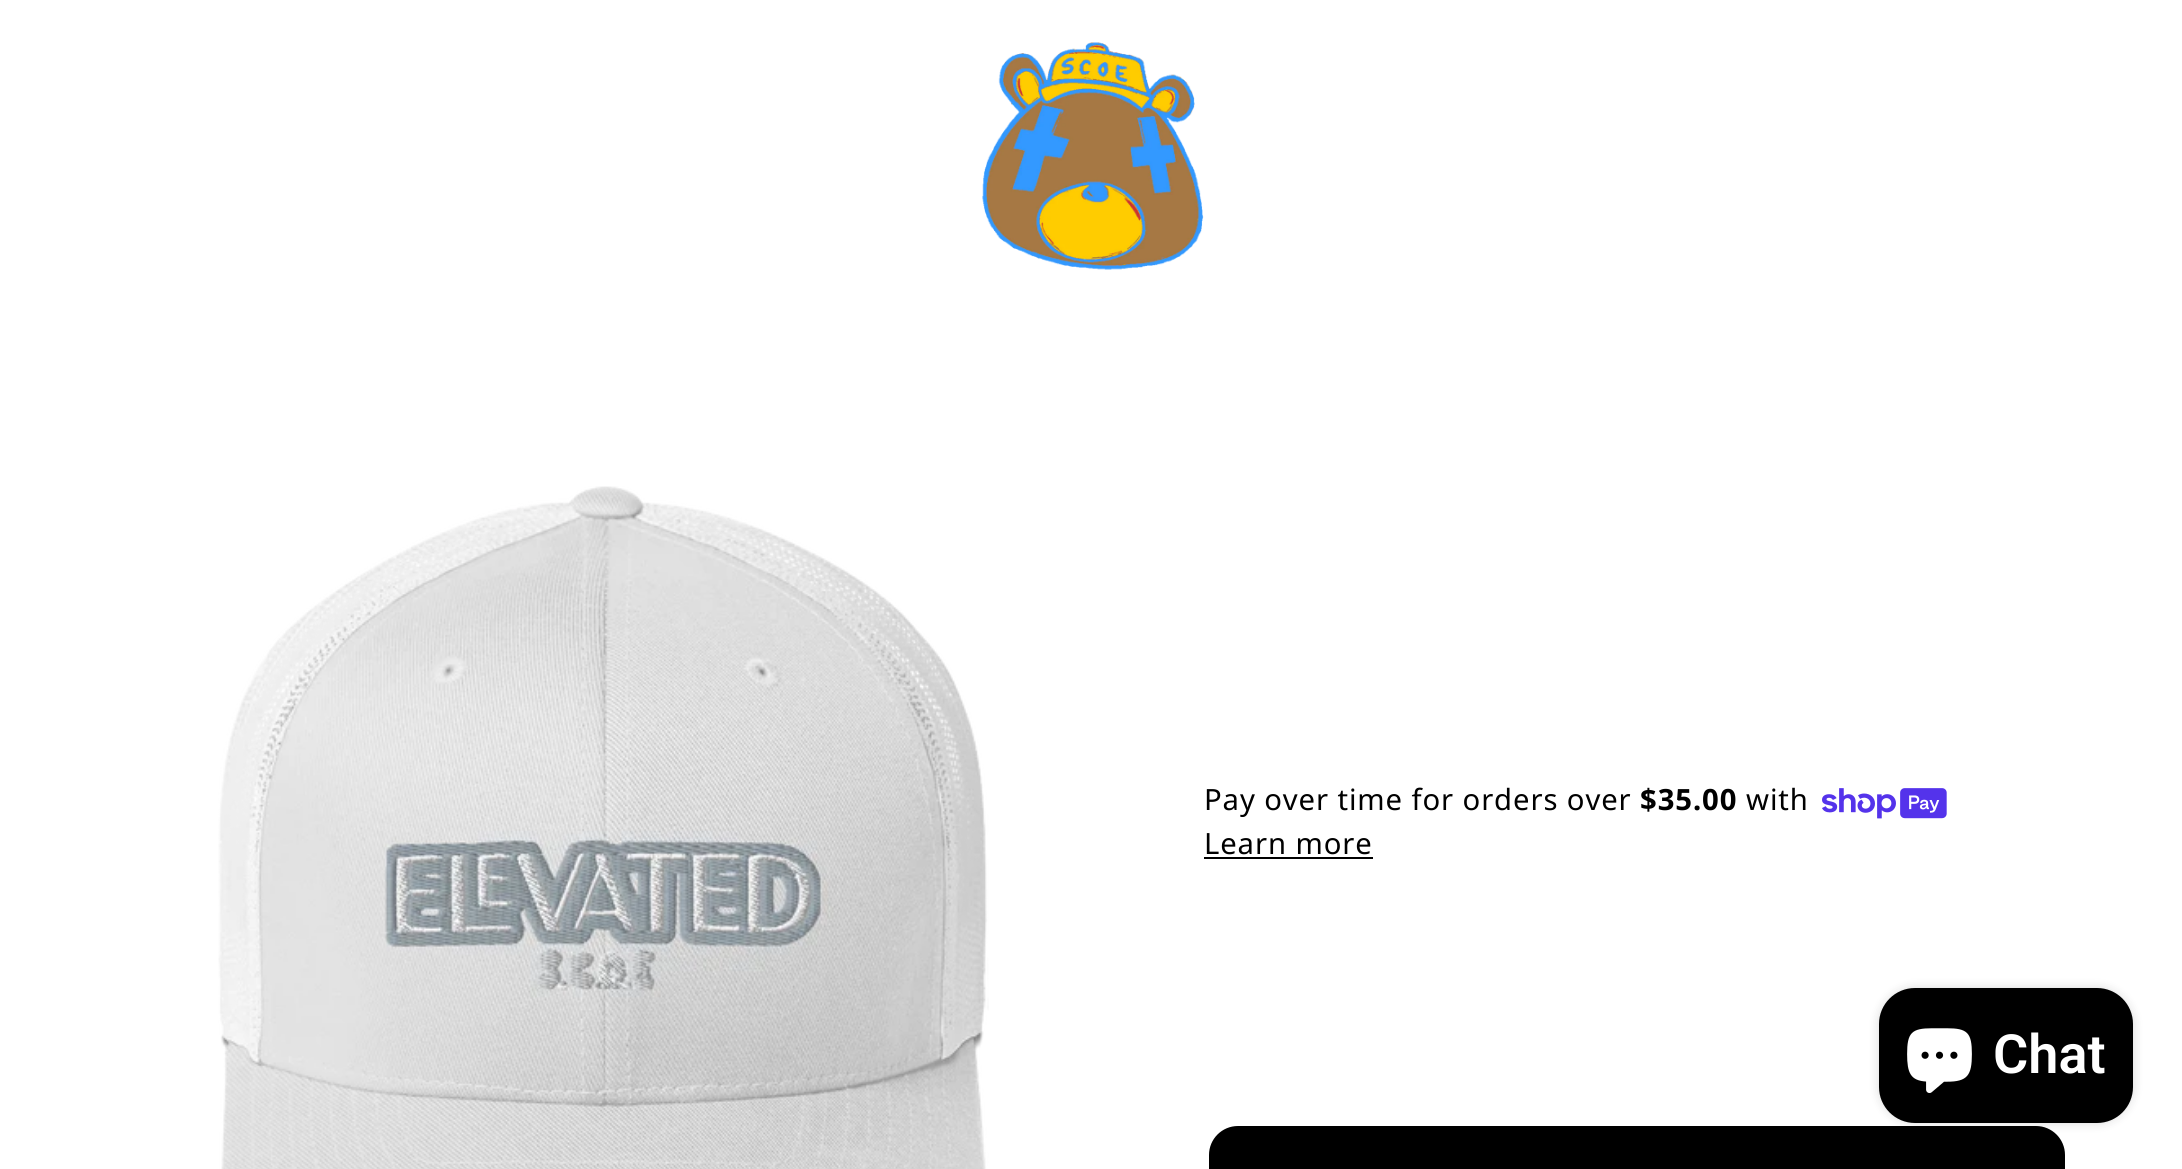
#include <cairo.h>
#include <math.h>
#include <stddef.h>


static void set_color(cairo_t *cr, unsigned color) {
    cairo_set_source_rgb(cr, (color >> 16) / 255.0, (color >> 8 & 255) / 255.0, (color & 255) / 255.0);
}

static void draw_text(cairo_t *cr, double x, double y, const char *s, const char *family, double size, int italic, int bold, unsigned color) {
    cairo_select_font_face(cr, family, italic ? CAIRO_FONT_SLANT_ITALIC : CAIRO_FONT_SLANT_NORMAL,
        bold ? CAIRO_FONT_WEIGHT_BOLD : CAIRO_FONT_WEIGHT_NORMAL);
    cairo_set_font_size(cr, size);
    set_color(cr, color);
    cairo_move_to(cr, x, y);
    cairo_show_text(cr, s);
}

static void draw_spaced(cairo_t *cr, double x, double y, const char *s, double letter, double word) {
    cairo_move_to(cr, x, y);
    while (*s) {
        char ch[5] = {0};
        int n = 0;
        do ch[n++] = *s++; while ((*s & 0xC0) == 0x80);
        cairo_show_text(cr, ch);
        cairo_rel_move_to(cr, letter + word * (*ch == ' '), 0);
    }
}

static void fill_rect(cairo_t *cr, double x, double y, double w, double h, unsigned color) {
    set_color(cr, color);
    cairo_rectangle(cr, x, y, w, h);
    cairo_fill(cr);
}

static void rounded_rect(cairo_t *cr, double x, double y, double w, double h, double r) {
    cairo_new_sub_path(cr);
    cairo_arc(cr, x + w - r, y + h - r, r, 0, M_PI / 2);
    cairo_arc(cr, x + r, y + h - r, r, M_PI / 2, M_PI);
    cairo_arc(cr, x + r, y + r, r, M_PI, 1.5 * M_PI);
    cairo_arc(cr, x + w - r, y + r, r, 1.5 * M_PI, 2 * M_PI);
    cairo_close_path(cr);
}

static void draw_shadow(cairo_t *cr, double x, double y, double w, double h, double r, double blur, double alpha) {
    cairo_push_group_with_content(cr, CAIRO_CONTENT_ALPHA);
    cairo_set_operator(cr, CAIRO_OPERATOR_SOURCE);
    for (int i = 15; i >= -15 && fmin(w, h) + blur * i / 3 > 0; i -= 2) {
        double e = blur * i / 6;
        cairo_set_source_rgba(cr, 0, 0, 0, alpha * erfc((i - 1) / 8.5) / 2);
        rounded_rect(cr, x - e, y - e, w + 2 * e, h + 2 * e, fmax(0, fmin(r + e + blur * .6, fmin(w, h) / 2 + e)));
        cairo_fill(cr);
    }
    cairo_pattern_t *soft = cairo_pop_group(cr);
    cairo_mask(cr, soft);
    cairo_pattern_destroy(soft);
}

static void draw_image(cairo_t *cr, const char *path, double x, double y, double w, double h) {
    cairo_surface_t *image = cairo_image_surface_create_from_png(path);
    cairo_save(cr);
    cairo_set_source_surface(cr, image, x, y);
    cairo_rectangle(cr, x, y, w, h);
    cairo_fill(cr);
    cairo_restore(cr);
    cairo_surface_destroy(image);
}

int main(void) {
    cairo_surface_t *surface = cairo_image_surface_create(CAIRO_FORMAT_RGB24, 2182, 1169);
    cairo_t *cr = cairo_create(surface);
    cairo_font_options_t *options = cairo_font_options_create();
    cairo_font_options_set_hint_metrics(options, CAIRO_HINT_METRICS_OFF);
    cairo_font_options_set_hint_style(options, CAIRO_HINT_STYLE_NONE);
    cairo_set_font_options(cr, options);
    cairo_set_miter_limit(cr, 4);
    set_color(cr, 0xFFFFFF);
    cairo_paint(cr);
    draw_image(cr, "assets/img1.png", 982, 42, 222, 228);
    draw_image(cr, "assets/img2.png", 218, 486, 771, 683);
    cairo_select_font_face(cr, "Noto Sans", CAIRO_FONT_SLANT_NORMAL, CAIRO_FONT_WEIGHT_NORMAL);
    cairo_set_font_size(cr, 29.25);
    set_color(cr, 0x000000);
    draw_spaced(cr, 1204, 810, "Pay over time for orders over", 0.9, 0);
    cairo_select_font_face(cr, "Noto Sans", CAIRO_FONT_SLANT_NORMAL, CAIRO_FONT_WEIGHT_BOLD);
    draw_spaced(cr, 1640, 810, "$35.00", 0.9, 0);
    cairo_select_font_face(cr, "Noto Sans", CAIRO_FONT_SLANT_NORMAL, CAIRO_FONT_WEIGHT_NORMAL);
    draw_spaced(cr, 1746, 810, "with", 0.9, 0);
    draw_image(cr, "assets/img3.png", 1822, 788, 125, 31);
    draw_spaced(cr, 1204, 854, "Learn more", 0.9, 0);
    fill_rect(cr, 1204, 857, 169, 2, 0x000000);
    rounded_rect(cr, 1206.5, 1123.5, 861, 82, 31.5);
    cairo_fill_preserve(cr);
    set_color(cr, 0xFFFFFF);
    cairo_set_line_width(cr, 5);
    cairo_stroke(cr);
    set_color(cr, 0x000000);
    draw_shadow(cr, 1879, 988, 254, 135, 36, 5.5, 0.15);
    set_color(cr, 0x000000);
    rounded_rect(cr, 1879, 988, 254, 135, 36);
    cairo_fill(cr);
    draw_image(cr, "assets/img4.png", 1907, 1028, 65, 65);
    draw_text(cr, 1993, 1073, "Chat", "Roboto SemiBold", 54, 0, 0, 0xFFFFFF);
    cairo_surface_write_to_png(surface, "output.png");
    cairo_font_options_destroy(options);
    cairo_destroy(cr);
    cairo_surface_destroy(surface);
    return 0;
}
